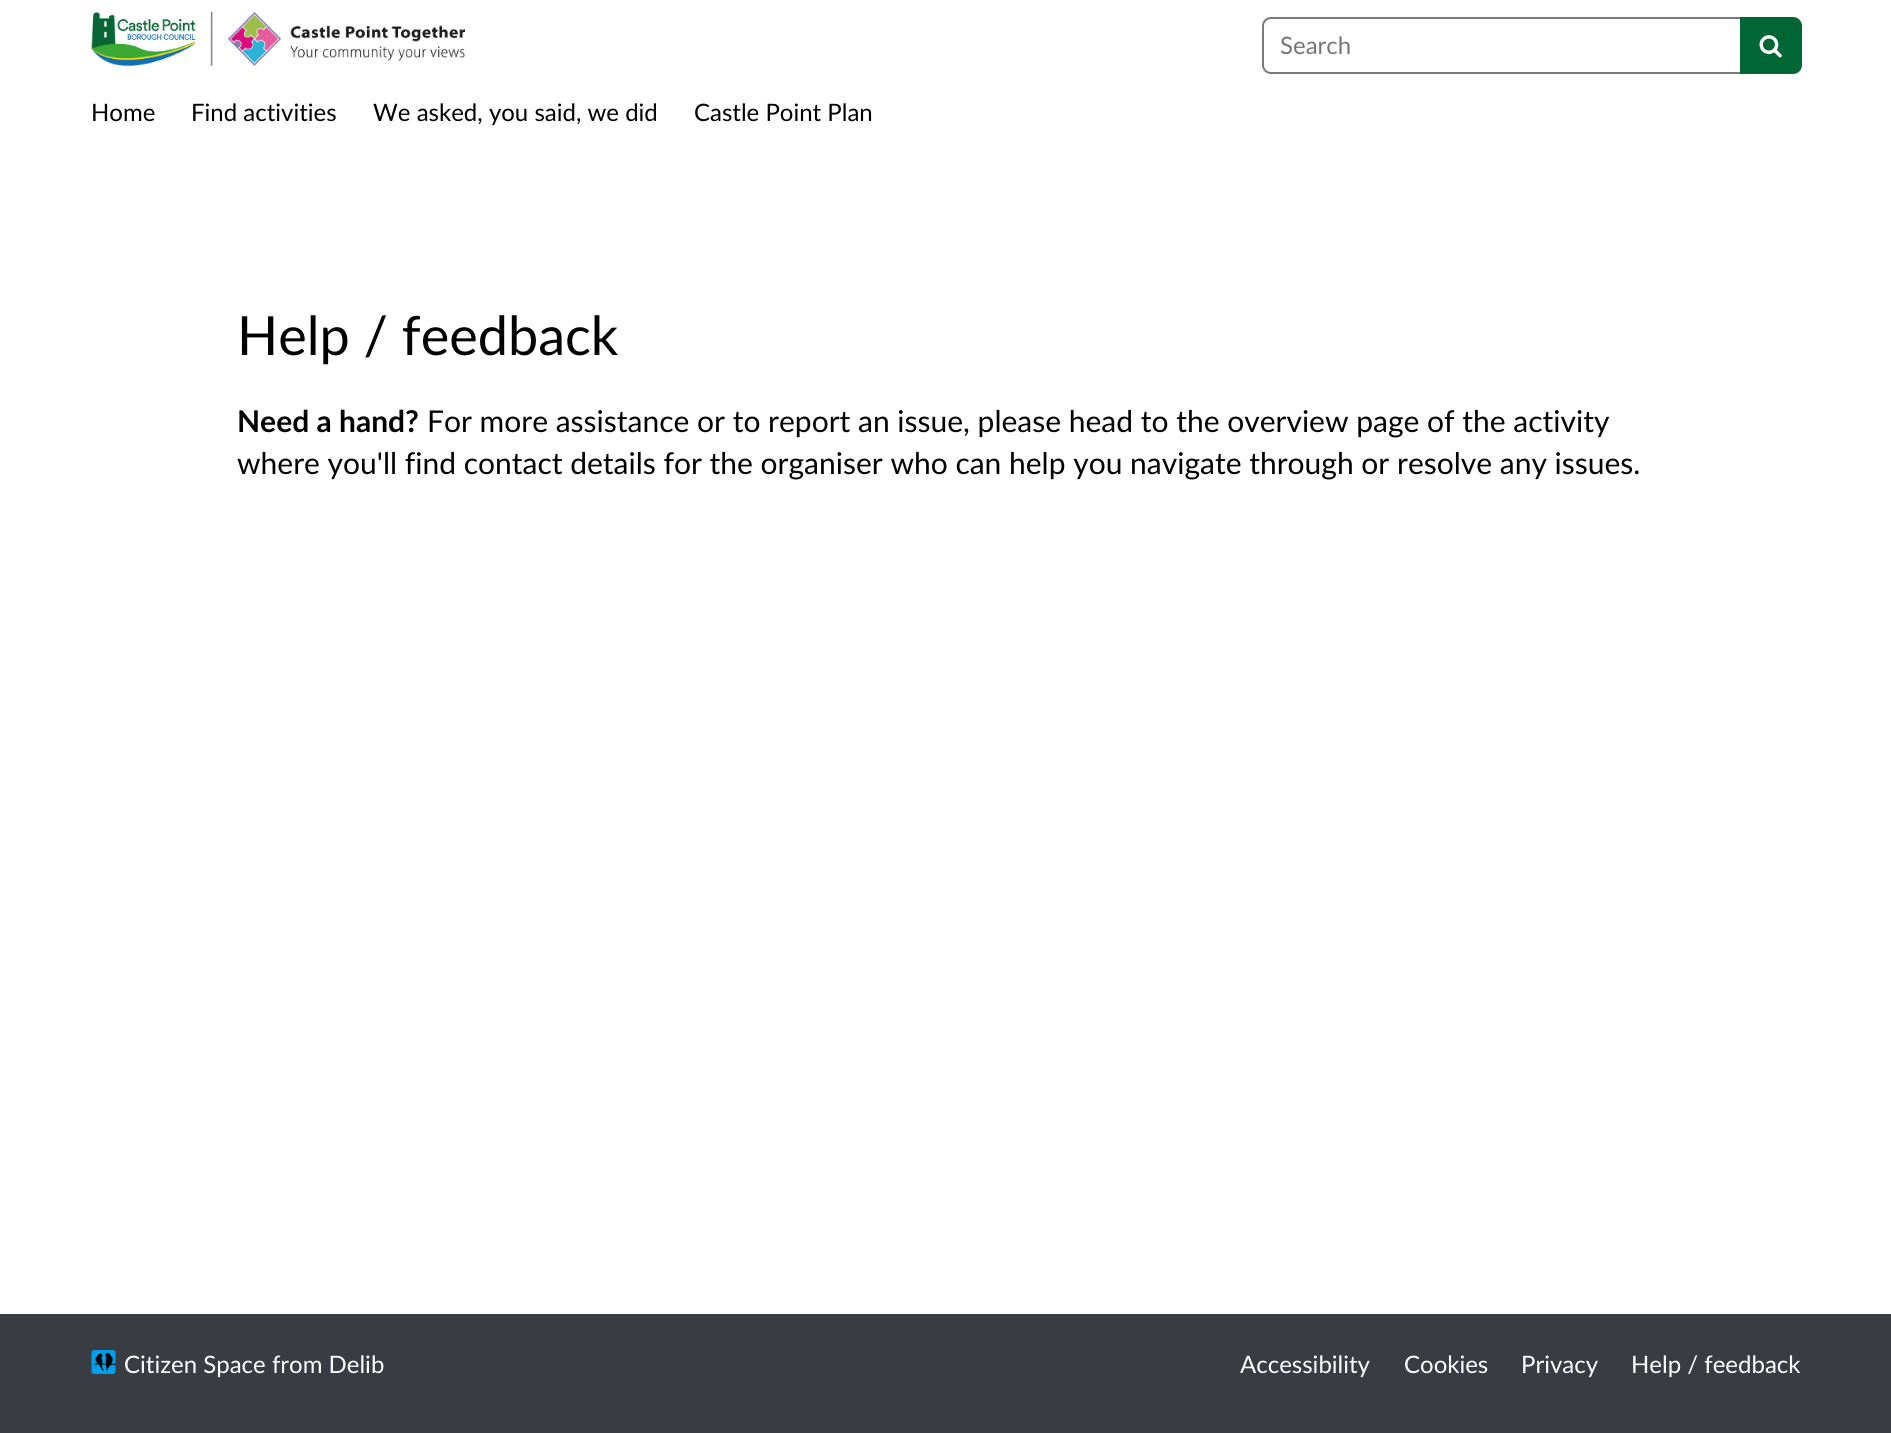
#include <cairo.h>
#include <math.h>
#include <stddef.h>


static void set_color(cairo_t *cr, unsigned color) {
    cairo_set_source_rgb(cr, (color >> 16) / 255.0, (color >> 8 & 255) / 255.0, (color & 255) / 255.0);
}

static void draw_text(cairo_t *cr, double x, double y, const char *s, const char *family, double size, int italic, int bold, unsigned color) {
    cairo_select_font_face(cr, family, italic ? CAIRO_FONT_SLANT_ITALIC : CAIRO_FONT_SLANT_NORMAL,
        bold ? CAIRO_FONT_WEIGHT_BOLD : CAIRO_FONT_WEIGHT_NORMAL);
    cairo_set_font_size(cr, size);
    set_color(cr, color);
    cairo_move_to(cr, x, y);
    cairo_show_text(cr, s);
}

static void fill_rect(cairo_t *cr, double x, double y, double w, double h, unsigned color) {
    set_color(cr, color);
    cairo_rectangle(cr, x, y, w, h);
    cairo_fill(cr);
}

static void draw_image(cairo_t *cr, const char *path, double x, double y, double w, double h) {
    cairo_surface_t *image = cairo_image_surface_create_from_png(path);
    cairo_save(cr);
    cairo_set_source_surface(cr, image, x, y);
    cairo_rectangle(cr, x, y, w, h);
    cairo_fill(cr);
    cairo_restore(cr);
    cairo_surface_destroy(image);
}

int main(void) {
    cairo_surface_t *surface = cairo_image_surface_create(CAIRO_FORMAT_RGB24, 1891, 1433);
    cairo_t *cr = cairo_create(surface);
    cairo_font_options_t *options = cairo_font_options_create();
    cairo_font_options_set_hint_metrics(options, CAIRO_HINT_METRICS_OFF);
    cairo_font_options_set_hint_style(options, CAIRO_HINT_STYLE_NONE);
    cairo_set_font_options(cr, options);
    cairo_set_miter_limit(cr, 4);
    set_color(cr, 0xFFFFFF);
    cairo_paint(cr);
    draw_image(cr, "assets/img1.png", 91, 12, 374, 54);
    cairo_new_path(cr);
    cairo_move_to(cr, 1271, 18);
    cairo_line_to(cr, 1741, 18);
    cairo_line_to(cr, 1741, 73);
    cairo_line_to(cr, 1271, 73);
    cairo_curve_to(cr, 1266.5, 73, 1263, 69.5, 1263, 65);
    cairo_line_to(cr, 1263, 26);
    cairo_curve_to(cr, 1263, 21.5, 1266.5, 18, 1271, 18);
    cairo_close_path(cr);
    set_color(cr, 0x7A7A80);
    cairo_stroke(cr);
    draw_text(cr, 1280, 54, "Search", "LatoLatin", 24, 0, 0, 0x767676);
    set_color(cr, 0x006633);
    cairo_new_path(cr);
    cairo_move_to(cr, 1741, 18);
    cairo_line_to(cr, 1793, 18);
    cairo_curve_to(cr, 1797.5, 18, 1801, 21.5, 1801, 26);
    cairo_line_to(cr, 1801, 65);
    cairo_curve_to(cr, 1801, 69.5, 1797.5, 73, 1793, 73);
    cairo_line_to(cr, 1741, 73);
    cairo_close_path(cr);
    cairo_fill_preserve(cr);
    cairo_stroke(cr);
    draw_image(cr, "assets/img2.png", 1759, 35, 23, 23);
    draw_text(cr, 91, 121, "Home", "LatoLatin", 24, 0, 0, 0x000000);
    draw_text(cr, 191, 121, "Find activities", "LatoLatin", 24, 0, 0, 0x000000);
    draw_text(cr, 373, 121, "We asked, you said, we did", "LatoLatin", 24, 0, 0, 0x000000);
    draw_text(cr, 694, 121, "Castle Point Plan", "LatoLatin", 24, 0, 0, 0x000000);
    draw_text(cr, 237, 355, "Help / feedback", "LatoLatin", 54, 0, 0, 0x000000);
    draw_text(cr, 237, 432, "Need a hand?", "LatoLatin", 30, 0, 1, 0x000000);
    draw_text(cr, 427, 432, "For more assistance or to report an issue, please head to the overview page of the activity", "LatoLatin", 30, 0, 0, 0x000000);
    draw_text(cr, 237, 474, "where you'll find contact details for the organiser who can help you navigate through or resolve any issues.", "LatoLatin", 30, 0, 0, 0x000000);
    fill_rect(cr, 0, 1314, 1891, 119, 0x393C43);
    draw_image(cr, "assets/img3.png", 91, 1350, 25, 24);
    draw_text(cr, 124, 1373, "Citizen Space from Delib", "LatoLatin", 24, 0, 0, 0xFFFFFF);
    draw_text(cr, 1240, 1373, "Accessibility", "LatoLatin", 24, 0, 0, 0xFFFFFF);
    draw_text(cr, 1404, 1373, "Cookies", "LatoLatin", 24, 0, 0, 0xFFFFFF);
    draw_text(cr, 1521, 1373, "Privacy", "LatoLatin", 24, 0, 0, 0xFFFFFF);
    draw_text(cr, 1631, 1373, "Help / feedback", "LatoLatin", 24, 0, 0, 0xFFFFFF);
    cairo_surface_write_to_png(surface, "output.png");
    cairo_font_options_destroy(options);
    cairo_destroy(cr);
    cairo_surface_destroy(surface);
    return 0;
}
